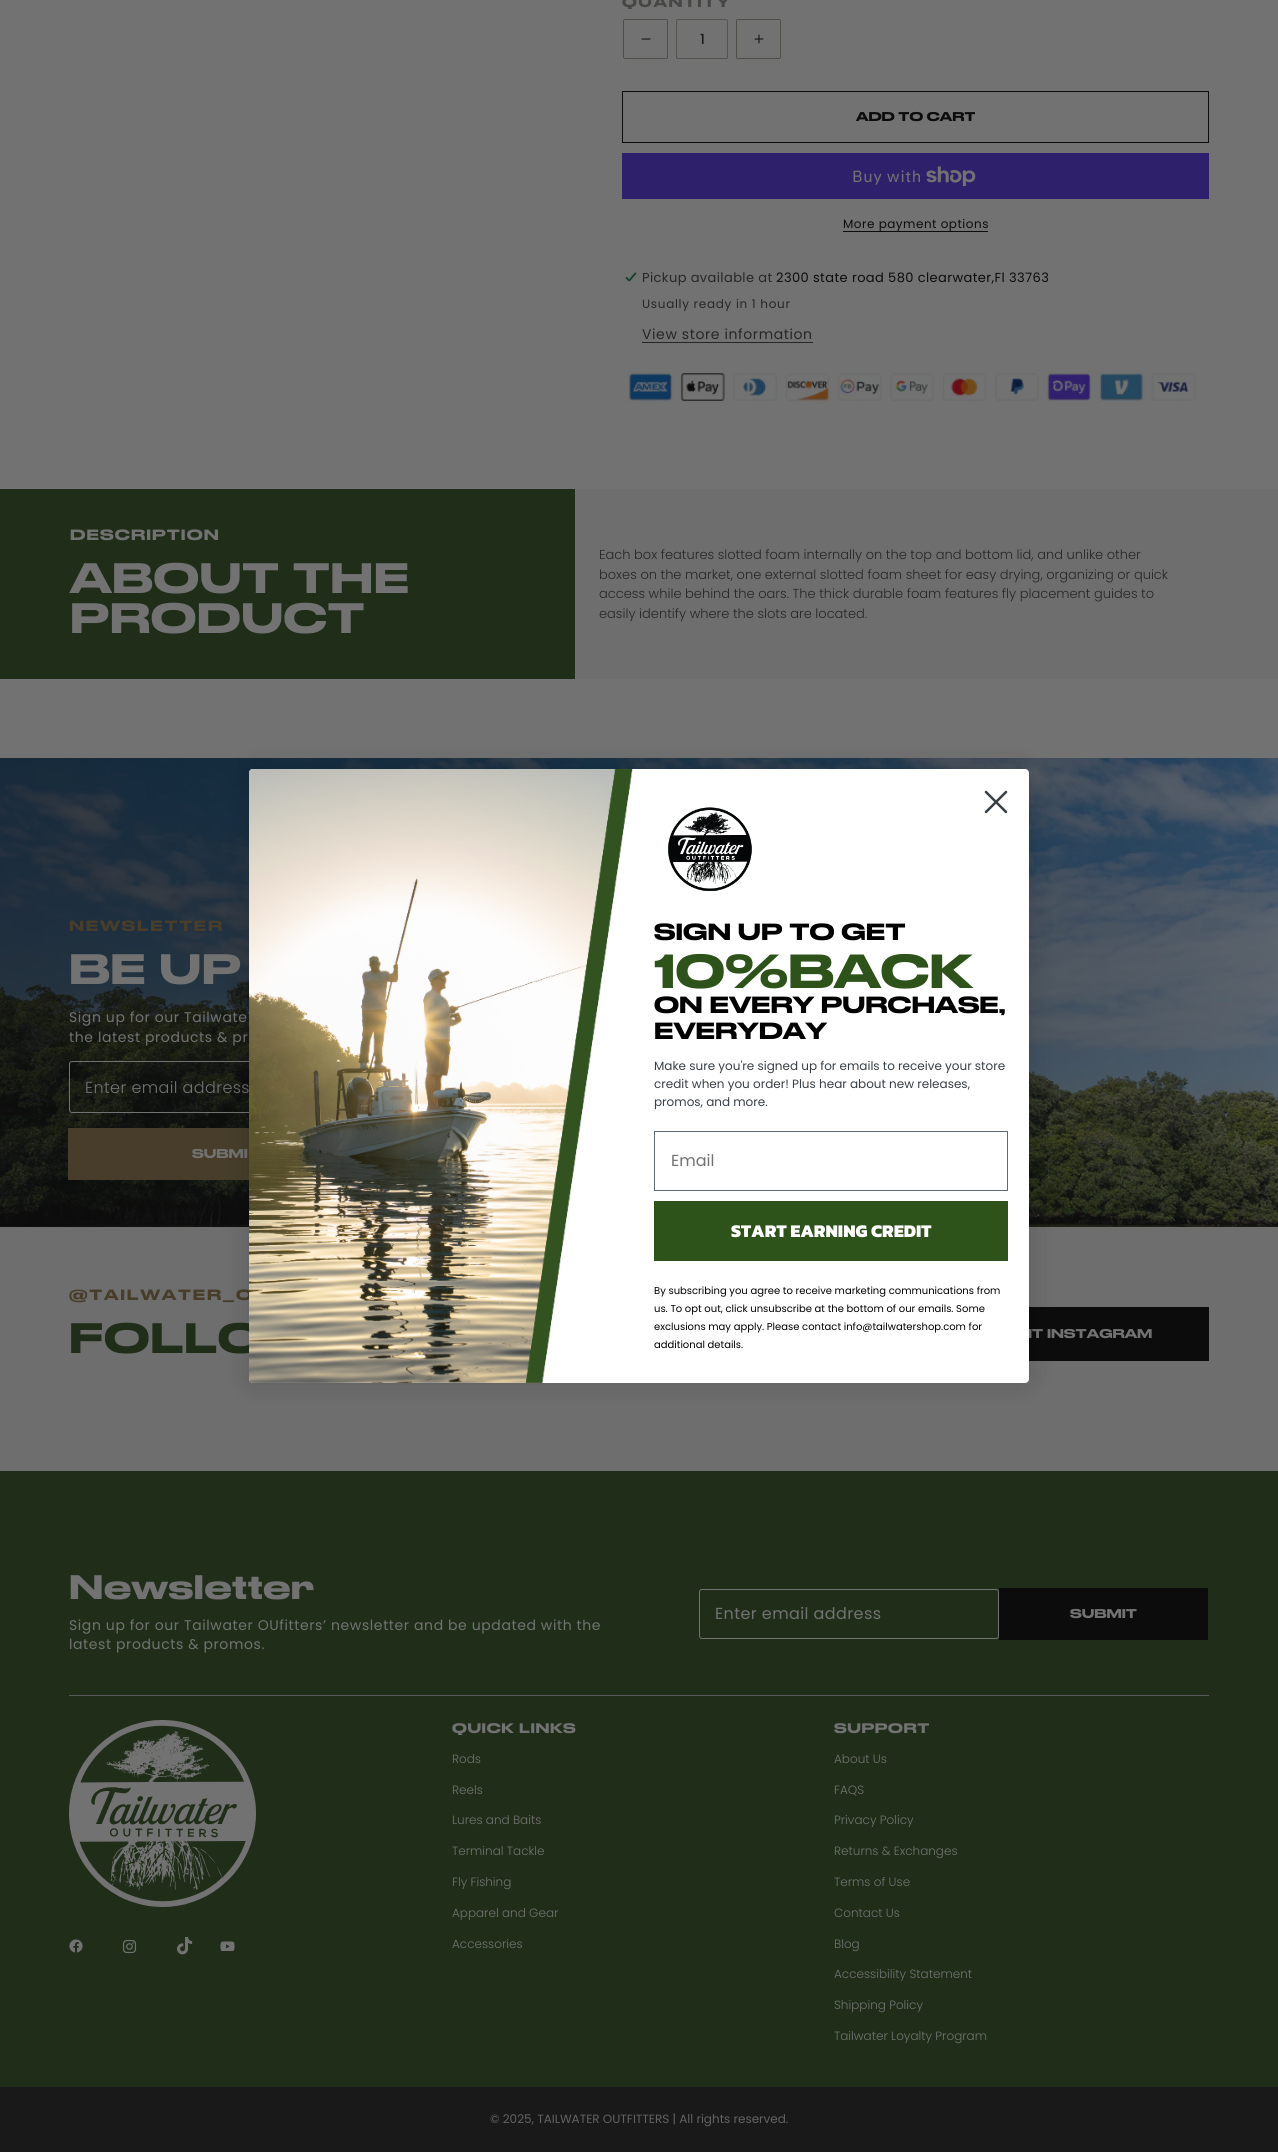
#include <cairo.h>
#include <math.h>
#include <stddef.h>


static void set_color(cairo_t *cr, unsigned color) {
    cairo_set_source_rgb(cr, (color >> 16) / 255.0, (color >> 8 & 255) / 255.0, (color & 255) / 255.0);
}

static void draw_text(cairo_t *cr, double x, double y, const char *s, const char *family, double size, int italic, int bold, unsigned color) {
    cairo_select_font_face(cr, family, italic ? CAIRO_FONT_SLANT_ITALIC : CAIRO_FONT_SLANT_NORMAL,
        bold ? CAIRO_FONT_WEIGHT_BOLD : CAIRO_FONT_WEIGHT_NORMAL);
    cairo_set_font_size(cr, size);
    set_color(cr, color);
    cairo_move_to(cr, x, y);
    cairo_show_text(cr, s);
}

static void draw_spaced(cairo_t *cr, double x, double y, const char *s, double letter, double word) {
    cairo_move_to(cr, x, y);
    while (*s) {
        char ch[5] = {0};
        int n = 0;
        do ch[n++] = *s++; while ((*s & 0xC0) == 0x80);
        cairo_show_text(cr, ch);
        cairo_rel_move_to(cr, letter + word * (*ch == ' '), 0);
    }
}

static void fill_rect(cairo_t *cr, double x, double y, double w, double h, unsigned color) {
    set_color(cr, color);
    cairo_rectangle(cr, x, y, w, h);
    cairo_fill(cr);
}

static void rounded_rect(cairo_t *cr, double x, double y, double w, double h, double r) {
    cairo_new_sub_path(cr);
    cairo_arc(cr, x + w - r, y + h - r, r, 0, M_PI / 2);
    cairo_arc(cr, x + r, y + h - r, r, M_PI / 2, M_PI);
    cairo_arc(cr, x + r, y + r, r, M_PI, 1.5 * M_PI);
    cairo_arc(cr, x + w - r, y + r, r, 1.5 * M_PI, 2 * M_PI);
    cairo_close_path(cr);
}

static void draw_shadow(cairo_t *cr, double x, double y, double w, double h, double r, double blur, double alpha) {
    cairo_push_group_with_content(cr, CAIRO_CONTENT_ALPHA);
    cairo_set_operator(cr, CAIRO_OPERATOR_SOURCE);
    for (int i = 15; i >= -15 && fmin(w, h) + blur * i / 3 > 0; i -= 2) {
        double e = blur * i / 6;
        cairo_set_source_rgba(cr, 0, 0, 0, alpha * erfc((i - 1) / 8.5) / 2);
        rounded_rect(cr, x - e, y - e, w + 2 * e, h + 2 * e, fmax(0, fmin(r + e + blur * .6, fmin(w, h) / 2 + e)));
        cairo_fill(cr);
    }
    cairo_pattern_t *soft = cairo_pop_group(cr);
    cairo_mask(cr, soft);
    cairo_pattern_destroy(soft);
}

static void draw_image(cairo_t *cr, const char *path, double x, double y, double w, double h) {
    cairo_surface_t *image = cairo_image_surface_create_from_png(path);
    cairo_save(cr);
    cairo_set_source_surface(cr, image, x, y);
    cairo_rectangle(cr, x, y, w, h);
    cairo_fill(cr);
    cairo_restore(cr);
    cairo_surface_destroy(image);
}

int main(void) {
    cairo_surface_t *surface = cairo_image_surface_create(CAIRO_FORMAT_RGB24, 1278, 2152);
    cairo_t *cr = cairo_create(surface);
    cairo_font_options_t *options = cairo_font_options_create();
    cairo_font_options_set_hint_metrics(options, CAIRO_HINT_METRICS_OFF);
    cairo_font_options_set_hint_style(options, CAIRO_HINT_STYLE_NONE);
    cairo_set_font_options(cr, options);
    cairo_set_miter_limit(cr, 4);
    set_color(cr, 0x727272);
    cairo_paint(cr);
    cairo_select_font_face(cr, "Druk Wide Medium", CAIRO_FONT_SLANT_NORMAL, CAIRO_FONT_WEIGHT_NORMAL);
    cairo_set_font_size(cr, 13);
    set_color(cr, 0x464745);
    draw_spaced(cr, 622, 7, "QUANTITY", 1.5, 0);
    rounded_rect(cr, 623.5, 19.5, 44, 39, 1.5);
    set_color(cr, 0x4A5048);
    cairo_set_line_width(cr, 1);
    cairo_stroke(cr);
    draw_image(cr, "assets/img1.png", 641, 38, 10, 2);
    rounded_rect(cr, 676.5, 19.5, 51, 39, 1.5);
    set_color(cr, 0x50554E);
    cairo_stroke(cr);
    draw_text(cr, 700, 44, "1", "Poppins Medium", 14, 0, 0, 0x1B1B1B);
    rounded_rect(cr, 736.5, 19.5, 44, 39, 1.5);
    set_color(cr, 0x4A5048);
    cairo_stroke(cr);
    draw_image(cr, "assets/img2.png", 754, 34, 10, 10);
    cairo_rectangle(cr, 622.5, 91.5, 586, 51);
    set_color(cr, 0x0C0C0C);
    cairo_stroke(cr);
    draw_text(cr, 856, 121, "ADD TO CART", "Druk Wide Medium", 12, 0, 0, 0x0C0C0C);
    fill_rect(cr, 622, 153, 587, 46, 0x2E206A);
    cairo_select_font_face(cr, "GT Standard", CAIRO_FONT_SLANT_NORMAL, CAIRO_FONT_WEIGHT_NORMAL);
    cairo_set_font_size(cr, 16);
    set_color(cr, 0x727272);
    draw_spaced(cr, 852, 182, "Buy with", 0.6, 0);
    draw_image(cr, "assets/img3.png", 926, 166, 50, 20);
    fill_rect(cr, 843, 231, 145, 1, 0x0C0C0C);
    cairo_select_font_face(cr, "Poppins", CAIRO_FONT_SLANT_NORMAL, CAIRO_FONT_WEIGHT_NORMAL);
    cairo_set_font_size(cr, 12);
    draw_spaced(cr, 843, 228, "More payment options", 0.5, 0);
    draw_image(cr, "assets/img4.png", 625, 272, 12, 10);
    cairo_set_font_size(cr, 13);
    set_color(cr, 0x262626);
    draw_spaced(cr, 642, 282, "Pickup available at", 0.4, 0);
    set_color(cr, 0x0C0C0C);
    draw_spaced(cr, 776, 282, "2300 state road 580 clearwater,Fl 33763", 0.4, 0);
    cairo_set_font_size(cr, 12);
    set_color(cr, 0x262626);
    draw_spaced(cr, 642, 308, "Usually ready in 1 hour", 0.7, 0);
    cairo_set_font_size(cr, 14);
    draw_spaced(cr, 642, 339, "View store information", 0.6, 0);
    fill_rect(cr, 642, 342, 171, 1, 0x262626);
    draw_image(cr, "assets/img5.png", 622, 370, 574, 34);
    fill_rect(cr, 575, 489, 703, 190, 0x6E6E6E);
    fill_rect(cr, 0, 489, 575, 190, 0x202E19);
    cairo_select_font_face(cr, "Druk Wide Medium", CAIRO_FONT_SLANT_NORMAL, CAIRO_FONT_WEIGHT_NORMAL);
    set_color(cr, 0x727272);
    draw_spaced(cr, 70, 540, "DESCRIPTION", 1.1, 0);
    cairo_set_font_size(cr, 40);
    draw_spaced(cr, 70, 593, "ABOUT THE", 0.6, 0);
    draw_spaced(cr, 70, 633, "PRODUCT", 0.6, 0);
    draw_text(cr, 599, 559, "Each box features slotted foam internally on the top and bottom lid, and unlike other", "Poppins Light", 13, 0, 0, 0x262626);
    draw_text(cr, 599, 579, "boxes on the market, one external slotted foam sheet for easy drying, organizing or quick", "Poppins Light", 13, 0, 0, 0x262626);
    draw_text(cr, 599, 598, "access while behind the oars. The thick durable foam features fly placement guides to", "Poppins Light", 13, 0, 0, 0x262626);
    draw_text(cr, 599, 618, "easily identify where the slots are located.", "Poppins Light", 13, 0, 0, 0x262626);
    draw_image(cr, "assets/img6.png", 0, 758, 1278, 469);
    cairo_select_font_face(cr, "Druk Wide Medium", CAIRO_FONT_SLANT_NORMAL, CAIRO_FONT_WEIGHT_NORMAL);
    cairo_set_font_size(cr, 14);
    set_color(cr, 0x473D2A);
    draw_spaced(cr, 69, 931, "NEWSLETTER", 1.75, 0);
    cairo_set_font_size(cr, 40);
    set_color(cr, 0x727272);
    draw_spaced(cr, 69, 984, "BE UP", 0.6, 0);
    cairo_select_font_face(cr, "Poppins", CAIRO_FONT_SLANT_NORMAL, CAIRO_FONT_WEIGHT_NORMAL);
    cairo_set_font_size(cr, 14);
    draw_spaced(cr, 69, 1022, "Sign up for our Tailwate", 0.6, 0);
    draw_spaced(cr, 69, 1042, "the latest products & pr", 0.6, 0);
    rounded_rect(cr, 69.5, 1061.5, 549, 51, 2.5);
    cairo_stroke(cr);
    cairo_select_font_face(cr, "Poppins Light", CAIRO_FONT_SLANT_NORMAL, CAIRO_FONT_WEIGHT_NORMAL);
    cairo_set_font_size(cr, 16);
    draw_spaced(cr, 85, 1093, "Enter email address", 0.4, 0);
    fill_rect(cr, 68, 1128, 181, 52, 0x473D2A);
    draw_text(cr, 192, 1158, "SUBMI", "Druk Wide Medium", 12, 0, 0, 0x727272);
    fill_rect(cr, 0, 1227, 1278, 244, 0x6E6E6E);
    cairo_set_font_size(cr, 14);
    set_color(cr, 0x473D2A);
    draw_spaced(cr, 69, 1300, "@TAILWATER_O", 1.75, 0);
    cairo_set_font_size(cr, 40);
    set_color(cr, 0x202E19);
    draw_spaced(cr, 69, 1353, "FOLLO", 0.6, 0);
    fill_rect(cr, 1029, 1307, 180, 54, 0x0C0C0C);
    draw_text(cr, 1028, 1338, "IT INSTAGRAM", "Druk Wide Medium", 12, 0, 0, 0x727272);
    fill_rect(cr, 0, 1472, 1278, 615, 0x202E19);
    fill_rect(cr, 0, 1471, 1278, 1, 0x1E2B18);
    fill_rect(cr, 69, 1695, 1140, 1, 0x585858);
    cairo_set_font_size(cr, 32);
    set_color(cr, 0x727272);
    draw_spaced(cr, 69, 1599, "Newsletter", 0.6, 0);
    cairo_select_font_face(cr, "Poppins", CAIRO_FONT_SLANT_NORMAL, CAIRO_FONT_WEIGHT_NORMAL);
    cairo_set_font_size(cr, 14);
    draw_spaced(cr, 69, 1630, "Sign up for our Tailwater OUfitters’ newsletter and be updated with the", 0.6, 0);
    draw_spaced(cr, 69, 1649, "latest products & promos.", 0.6, 0);
    rounded_rect(cr, 699.5, 1589.5, 299, 49, 2.5);
    cairo_stroke(cr);
    cairo_set_font_size(cr, 16);
    draw_spaced(cr, 715, 1619, "Enter email address", 0.4, 0);
    fill_rect(cr, 999, 1588, 209, 52, 0x0C0C0C);
    draw_text(cr, 1070, 1618, "SUBMIT", "Druk Wide Medium", 12, 0, 0, 0x727272);
    draw_image(cr, "assets/img7.png", 69, 1720, 187, 187);
    draw_image(cr, "assets/img8.png", 69, 1939, 14, 14);
    draw_image(cr, "assets/img9.png", 122, 1939, 15, 15);
    draw_image(cr, "assets/img10.png", 177, 1937, 16, 18);
    draw_image(cr, "assets/img11.png", 220, 1941, 15, 10);
    cairo_set_font_size(cr, 13);
    draw_spaced(cr, 452, 1733, "QUICK LINKS", 0.6, 0);
    draw_text(cr, 452, 1763, "Rods", "Poppins Light", 12, 0, 0, 0x727272);
    draw_text(cr, 452, 1794, "Reels", "Poppins Light", 12, 0, 0, 0x727272);
    draw_text(cr, 452, 1824, "Lures and Baits", "Poppins Light", 12, 0, 0, 0x727272);
    draw_text(cr, 452, 1855, "Terminal Tackle", "Poppins Light", 12, 0, 0, 0x727272);
    draw_text(cr, 452, 1886, "Fly Fishing", "Poppins Light", 12, 0, 0, 0x727272);
    draw_text(cr, 452, 1917, "Apparel and Gear", "Poppins Light", 12, 0, 0, 0x727272);
    draw_text(cr, 452, 1948, "Accessories", "Poppins Light", 12, 0, 0, 0x727272);
    cairo_select_font_face(cr, "Druk Wide Medium", CAIRO_FONT_SLANT_NORMAL, CAIRO_FONT_WEIGHT_NORMAL);
    cairo_set_font_size(cr, 13);
    draw_spaced(cr, 834, 1733, "SUPPORT", 0.6, 0);
    draw_text(cr, 834, 1763, "About Us", "Poppins Light", 12, 0, 0, 0x727272);
    draw_text(cr, 834, 1794, "FAQS", "Poppins Light", 12, 0, 0, 0x727272);
    draw_text(cr, 834, 1824, "Privacy Policy", "Poppins Light", 12, 0, 0, 0x727272);
    draw_text(cr, 834, 1855, "Returns & Exchanges", "Poppins Light", 12, 0, 0, 0x727272);
    draw_text(cr, 834, 1886, "Terms of Use", "Poppins Light", 12, 0, 0, 0x727272);
    draw_text(cr, 834, 1917, "Contact Us", "Poppins Light", 12, 0, 0, 0x727272);
    draw_text(cr, 834, 1948, "Blog", "Poppins Light", 12, 0, 0, 0x727272);
    draw_text(cr, 834, 1978, "Accessibility Statement", "Poppins Light", 12, 0, 0, 0x727272);
    draw_text(cr, 834, 2009, "Shipping Policy", "Poppins Light", 12, 0, 0, 0x727272);
    draw_text(cr, 834, 2040, "Tailwater Loyalty Program", "Poppins Light", 12, 0, 0, 0x727272);
    fill_rect(cr, 0, 2087, 1278, 65, 0x191919);
    draw_text(cr, 490, 2123, "© 2025, TAILWATER OUTFITTERS | All rights reserved.", "Poppins", 12, 0, 0, 0x626262);
    set_color(cr, 0x000000);
    draw_shadow(cr, 249, 769, 780, 614, 4, 15, 0.15);
    set_color(cr, 0xFFFFFF);
    rounded_rect(cr, 249, 769, 780, 614, 4);
    cairo_fill(cr);
    cairo_new_path(cr);
    cairo_move_to(cr, 986, 792);
    cairo_line_to(cr, 1006, 812);
    cairo_move_to(cr, 986, 812);
    cairo_line_to(cr, 1006, 792);
    cairo_close_path(cr);
    set_color(cr, 0x373F47);
    cairo_set_line_width(cr, 2.5);
    cairo_set_line_cap(cr, CAIRO_LINE_CAP_ROUND);
    cairo_set_line_join(cr, CAIRO_LINE_JOIN_ROUND);
    cairo_stroke(cr);
    draw_image(cr, "assets/img12.png", 249, 769, 384, 614);
    draw_image(cr, "assets/img13.png", 668, 807, 84, 84);
    draw_text(cr, 654, 940, "SIGN UP TO GET", "Druk Wide Medium", 22, 0, 0, 0x000000);
    draw_text(cr, 654, 988, "10%BACK", "Druk Wide Medium", 45, 0, 0, 0x2D521A);
    draw_text(cr, 654, 1013, "ON EVERY PURCHASE,", "Druk Wide Medium", 22, 0, 0, 0x000000);
    draw_text(cr, 654, 1039, "EVERYDAY", "Druk Wide Medium", 22, 0, 0, 0x000000);
    draw_text(cr, 654, 1070, "Make sure you're signed up for emails to receive your store", "Poppins", 12, 0, 0, 0x373F47);
    draw_text(cr, 654, 1088, "credit when you order! Plus hear about new releases,", "Poppins", 12, 0, 0, 0x373F47);
    draw_text(cr, 654, 1106, "promos, and more.", "Poppins", 12, 0, 0, 0x373F47);
    cairo_rectangle(cr, 654.5, 1131.5, 353, 59);
    set_color(cr, 0x606A72);
    cairo_set_line_width(cr, 1);
    cairo_set_line_cap(cr, CAIRO_LINE_CAP_BUTT);
    cairo_set_line_join(cr, CAIRO_LINE_JOIN_MITER);
    cairo_stroke(cr);
    draw_text(cr, 671, 1166, "Email", "Poppins", 16, 0, 0, 0x727272);
    fill_rect(cr, 654, 1201, 354, 60, 0x2D521A);
    draw_text(cr, 731, 1237, "START EARNING CREDIT", "Kanit ExtraBold", 18, 0, 0, 0xFFFFFF);
    draw_text(cr, 654, 1294, "By subscribing you agree to receive marketing communications from", "Poppins", 10, 0, 0, 0x000000);
    draw_text(cr, 654, 1312, "us. To opt out, click unsubscribe at the bottom of our emails. Some", "Poppins", 10, 0, 0, 0x000000);
    draw_text(cr, 654, 1330, "exclusions may apply. Please contact info@tailwatershop.com for", "Poppins", 10, 0, 0, 0x000000);
    draw_text(cr, 654, 1348, "additional details.", "Poppins", 10, 0, 0, 0x000000);
    cairo_surface_write_to_png(surface, "output.png");
    cairo_font_options_destroy(options);
    cairo_destroy(cr);
    cairo_surface_destroy(surface);
    return 0;
}
